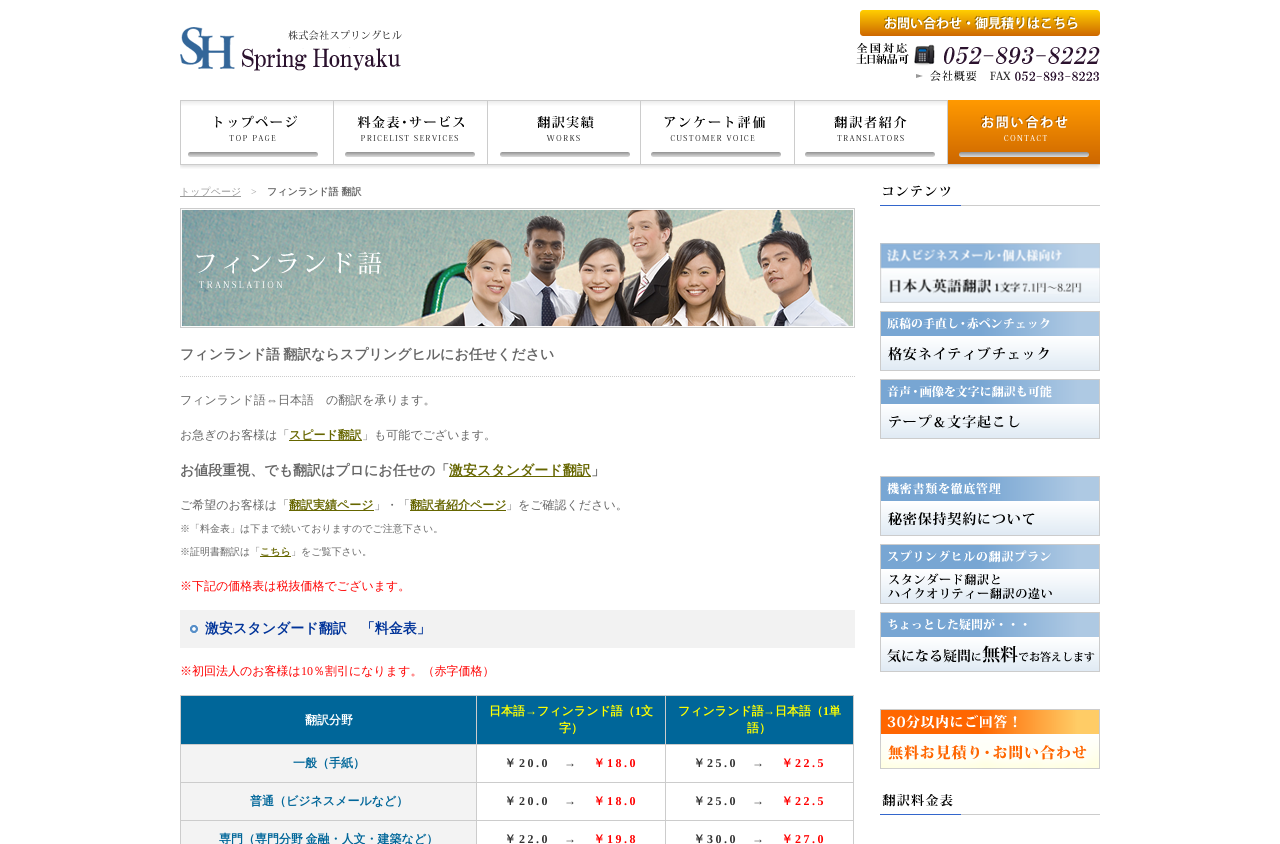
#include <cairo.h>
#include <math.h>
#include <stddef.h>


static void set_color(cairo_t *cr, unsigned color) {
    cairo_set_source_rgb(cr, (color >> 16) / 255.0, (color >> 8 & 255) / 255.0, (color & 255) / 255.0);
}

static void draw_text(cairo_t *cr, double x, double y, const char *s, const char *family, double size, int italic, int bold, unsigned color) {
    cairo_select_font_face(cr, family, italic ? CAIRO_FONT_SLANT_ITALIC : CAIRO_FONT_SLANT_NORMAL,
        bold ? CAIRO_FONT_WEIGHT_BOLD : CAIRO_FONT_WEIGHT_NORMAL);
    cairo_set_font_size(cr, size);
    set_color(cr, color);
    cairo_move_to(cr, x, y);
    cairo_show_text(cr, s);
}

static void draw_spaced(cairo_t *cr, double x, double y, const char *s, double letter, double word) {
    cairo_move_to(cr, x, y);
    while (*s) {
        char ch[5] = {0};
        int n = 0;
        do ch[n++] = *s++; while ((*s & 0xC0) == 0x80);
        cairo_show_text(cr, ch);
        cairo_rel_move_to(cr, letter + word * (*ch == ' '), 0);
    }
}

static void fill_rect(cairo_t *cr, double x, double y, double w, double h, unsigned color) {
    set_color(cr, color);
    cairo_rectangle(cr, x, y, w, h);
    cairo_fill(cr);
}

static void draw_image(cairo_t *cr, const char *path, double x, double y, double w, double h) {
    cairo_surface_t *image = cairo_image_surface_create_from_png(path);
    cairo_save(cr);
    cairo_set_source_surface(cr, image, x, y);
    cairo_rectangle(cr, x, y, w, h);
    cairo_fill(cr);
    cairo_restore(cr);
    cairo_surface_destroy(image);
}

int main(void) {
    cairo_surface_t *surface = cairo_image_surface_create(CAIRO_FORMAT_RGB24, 1280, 844);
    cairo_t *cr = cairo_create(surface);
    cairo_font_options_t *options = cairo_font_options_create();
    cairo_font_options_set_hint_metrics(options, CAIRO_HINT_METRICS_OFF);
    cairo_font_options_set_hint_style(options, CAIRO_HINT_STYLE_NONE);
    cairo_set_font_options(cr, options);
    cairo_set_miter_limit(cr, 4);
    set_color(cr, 0xFFFFFF);
    cairo_paint(cr);
    draw_image(cr, "assets/img1.png", 856, 43, 244, 38);
    draw_image(cr, "assets/img2.png", 860, 10, 240, 26);
    draw_image(cr, "assets/img3.png", 180, 27, 222, 44);
    draw_image(cr, "assets/img4.png", 916, 70, 61, 11);
    draw_image(cr, "assets/img5.png", 180, 100, 153, 69);
    draw_image(cr, "assets/img6.png", 333, 100, 154, 69);
    draw_image(cr, "assets/img7.png", 487, 100, 153, 69);
    draw_image(cr, "assets/img8.png", 640, 100, 154, 69);
    draw_image(cr, "assets/img9.png", 794, 100, 153, 69);
    draw_image(cr, "assets/img10.png", 947, 100, 153, 69);
    fill_rect(cr, 180, 196, 61, 1, 0x999999);
    draw_text(cr, 180, 195, "トップページ", "WenQuanYi Zen Hei Medium", 10, 0, 0, 0x999999);
    draw_text(cr, 251, 195, ">", "Liberation Serif", 10, 0, 0, 0x999999);
    draw_text(cr, 267, 195, "フィンランド語 翻訳", "WenQuanYi Zen Hei", 10, 0, 1, 0x666666);
    draw_image(cr, "assets/img11.png", 180, 208, 675, 120);
    cairo_new_path(cr);
    cairo_move_to(cr, 180, 376.5);
    cairo_line_to(cr, 855, 376.5);
    set_color(cr, 0xCCCCCC);
    cairo_set_line_width(cr, 1);
    cairo_set_dash(cr, (double[]){1, 1}, 2, 0);
    cairo_stroke(cr);
    cairo_set_font_size(cr, 14);
    set_color(cr, 0x666666);
    draw_spaced(cr, 180, 359, "フィンランド語 翻訳ならスプリングヒルにお任せください", 0, -1);
    draw_text(cr, 180, 404, "フィンランド語", "WenQuanYi Zen Hei Medium", 12, 0, 0, 0x666666);
    draw_text(cr, 266, 404, "⇔", "Liberation Serif", 12, 0, 0, 0x666666);
    draw_text(cr, 278, 404, "日本語　の翻訳を承ります。", "WenQuanYi Zen Hei Medium", 12, 0, 0, 0x666666);
    draw_text(cr, 180, 439, "お急ぎのお客様は「", "WenQuanYi Zen Hei Medium", 12, 0, 0, 0x666666);
    fill_rect(cr, 289, 440, 73, 1, 0x666600);
    draw_text(cr, 289, 439, "スピード翻訳", "WenQuanYi Zen Hei", 12, 0, 1, 0x666600);
    draw_text(cr, 362, 439, "」も可能でございます。", "WenQuanYi Zen Hei Medium", 12, 0, 0, 0x666666);
    draw_text(cr, 180, 475, "お値段重視、でも翻訳はプロにお任せの「", "WenQuanYi Zen Hei", 14, 0, 1, 0x666666);
    fill_rect(cr, 449, 476, 142, 1, 0x666600);
    draw_text(cr, 449, 475, "激安スタンダード翻訳", "WenQuanYi Zen Hei", 14, 0, 1, 0x666600);
    draw_text(cr, 591, 475, "」", "WenQuanYi Zen Hei", 14, 0, 1, 0x666666);
    draw_text(cr, 180, 509, "ご希望のお客様は「", "WenQuanYi Zen Hei Medium", 12, 0, 0, 0x666666);
    fill_rect(cr, 289, 510, 85, 1, 0x666600);
    draw_text(cr, 289, 509, "翻訳実績ページ", "WenQuanYi Zen Hei", 12, 0, 1, 0x666600);
    draw_text(cr, 374, 509, "」・「", "WenQuanYi Zen Hei Medium", 12, 0, 0, 0x666666);
    fill_rect(cr, 410, 510, 96, 1, 0x666600);
    draw_text(cr, 410, 509, "翻訳者紹介ページ", "WenQuanYi Zen Hei", 12, 0, 1, 0x666600);
    draw_text(cr, 506, 509, "」をご確認ください。", "WenQuanYi Zen Hei Medium", 12, 0, 0, 0x666666);
    draw_text(cr, 180, 532, "※「料金表」は下まで続いておりますのでご注意下さい。", "WenQuanYi Zen Hei Medium", 10, 0, 0, 0x666666);
    draw_text(cr, 180, 555, "※証明書翻訳は「", "WenQuanYi Zen Hei Medium", 10, 0, 0, 0x666666);
    fill_rect(cr, 260, 556, 31, 1, 0x666600);
    draw_text(cr, 260, 555, "こちら", "WenQuanYi Zen Hei", 10, 0, 1, 0x666600);
    draw_text(cr, 291, 555, "」をご覧下さい。", "WenQuanYi Zen Hei Medium", 10, 0, 0, 0x666666);
    draw_text(cr, 180, 590, "※下記の価格表は税抜価格でございます。", "WenQuanYi Zen Hei Medium", 12, 0, 0, 0xFF0000);
    fill_rect(cr, 180, 610, 675, 38, 0xF2F2F2);
    draw_image(cr, "assets/img12.png", 190, 625, 8, 8);
    draw_text(cr, 205, 633, "激安スタンダード翻訳　「料金表」", "WenQuanYi Zen Hei", 14, 0, 1, 0x003399);
    draw_text(cr, 180, 675, "※初回法人のお客様は", "WenQuanYi Zen Hei Medium", 12, 0, 0, 0xFF0000);
    draw_text(cr, 301, 675, "10", "Liberation Serif", 12, 0, 0, 0xFF0000);
    draw_text(cr, 313, 675, "％割引になります。（赤字価格）", "WenQuanYi Zen Hei Medium", 12, 0, 0, 0xFF0000);
    fill_rect(cr, 180, 695, 674, 1, 0xCCCCCC);
    fill_rect(cr, 180, 695, 1, 149, 0xCCCCCC);
    fill_rect(cr, 181, 696, 295, 48, 0x006699);
    fill_rect(cr, 476, 696, 1, 148, 0xCCCCCC);
    fill_rect(cr, 181, 744, 296, 1, 0xCCCCCC);
    draw_text(cr, 305, 724, "翻訳分野", "WenQuanYi Zen Hei", 12, 0, 1, 0xFFFFFF);
    fill_rect(cr, 477, 696, 188, 48, 0x006699);
    fill_rect(cr, 665, 696, 1, 148, 0xCCCCCC);
    fill_rect(cr, 477, 744, 189, 1, 0xCCCCCC);
    draw_text(cr, 489, 715, "日本語", "WenQuanYi Zen Hei", 12, 0, 1, 0xFFFF00);
    draw_text(cr, 525, 715, "→", "Liberation Serif", 12, 0, 1, 0xFFFF00);
    draw_text(cr, 537, 715, "フィンランド語（", "WenQuanYi Zen Hei", 12, 0, 1, 0xFFFF00);
    draw_text(cr, 635, 715, "1", "Liberation Serif", 12, 0, 1, 0xFFFF00);
    draw_text(cr, 641, 715, "文", "WenQuanYi Zen Hei", 12, 0, 1, 0xFFFF00);
    draw_text(cr, 559, 732, "字）", "WenQuanYi Zen Hei", 12, 0, 1, 0xFFFF00);
    fill_rect(cr, 666, 696, 187, 48, 0x006699);
    fill_rect(cr, 853, 696, 1, 148, 0xCCCCCC);
    fill_rect(cr, 666, 744, 188, 1, 0xCCCCCC);
    draw_text(cr, 678, 715, "フィンランド語", "WenQuanYi Zen Hei", 12, 0, 1, 0xFFFF00);
    draw_text(cr, 763, 715, "→", "Liberation Serif", 12, 0, 1, 0xFFFF00);
    draw_text(cr, 775, 715, "日本語（", "WenQuanYi Zen Hei", 12, 0, 1, 0xFFFF00);
    draw_text(cr, 823, 715, "1", "Liberation Serif", 12, 0, 1, 0xFFFF00);
    draw_text(cr, 829, 715, "単", "WenQuanYi Zen Hei", 12, 0, 1, 0xFFFF00);
    draw_text(cr, 747, 732, "語）", "WenQuanYi Zen Hei", 12, 0, 1, 0xFFFF00);
    fill_rect(cr, 181, 745, 295, 37, 0xF3F3F3);
    fill_rect(cr, 181, 782, 673, 1, 0xCCCCCC);
    draw_text(cr, 293, 767, "一般（手紙）", "WenQuanYi Zen Hei", 12, 0, 1, 0x006699);
    set_color(cr, 0x333333);
    draw_spaced(cr, 504, 767, "￥", 2.5, 0);
    cairo_select_font_face(cr, "Liberation Serif", CAIRO_FONT_SLANT_NORMAL, CAIRO_FONT_WEIGHT_BOLD);
    draw_spaced(cr, 519, 767, "20.0", 2.5, 0);
    draw_spaced(cr, 564, 767, "→", 2.5, 0);
    cairo_select_font_face(cr, "WenQuanYi Zen Hei", CAIRO_FONT_SLANT_NORMAL, CAIRO_FONT_WEIGHT_BOLD);
    set_color(cr, 0xFF0000);
    draw_spaced(cr, 593, 767, "￥", 2.5, 0);
    cairo_select_font_face(cr, "Liberation Serif", CAIRO_FONT_SLANT_NORMAL, CAIRO_FONT_WEIGHT_BOLD);
    draw_spaced(cr, 607, 767, "18.0", 2.5, 0);
    cairo_select_font_face(cr, "WenQuanYi Zen Hei", CAIRO_FONT_SLANT_NORMAL, CAIRO_FONT_WEIGHT_BOLD);
    set_color(cr, 0x333333);
    draw_spaced(cr, 693, 767, "￥", 2.5, 0);
    cairo_select_font_face(cr, "Liberation Serif", CAIRO_FONT_SLANT_NORMAL, CAIRO_FONT_WEIGHT_BOLD);
    draw_spaced(cr, 707, 767, "25.0", 2.5, 0);
    draw_spaced(cr, 752, 767, "→", 2.5, 0);
    cairo_select_font_face(cr, "WenQuanYi Zen Hei", CAIRO_FONT_SLANT_NORMAL, CAIRO_FONT_WEIGHT_BOLD);
    set_color(cr, 0xFF0000);
    draw_spaced(cr, 781, 767, "￥", 2.5, 0);
    cairo_select_font_face(cr, "Liberation Serif", CAIRO_FONT_SLANT_NORMAL, CAIRO_FONT_WEIGHT_BOLD);
    draw_spaced(cr, 795, 767, "22.5", 2.5, 0);
    fill_rect(cr, 181, 783, 295, 37, 0xF3F3F3);
    fill_rect(cr, 181, 820, 673, 1, 0xCCCCCC);
    draw_text(cr, 250, 805, "普通（ビジネスメールなど）", "WenQuanYi Zen Hei", 12, 0, 1, 0x006699);
    set_color(cr, 0x333333);
    draw_spaced(cr, 504, 805, "￥", 2.5, 0);
    cairo_select_font_face(cr, "Liberation Serif", CAIRO_FONT_SLANT_NORMAL, CAIRO_FONT_WEIGHT_BOLD);
    draw_spaced(cr, 519, 805, "20.0", 2.5, 0);
    draw_spaced(cr, 564, 805, "→", 2.5, 0);
    cairo_select_font_face(cr, "WenQuanYi Zen Hei", CAIRO_FONT_SLANT_NORMAL, CAIRO_FONT_WEIGHT_BOLD);
    set_color(cr, 0xFF0000);
    draw_spaced(cr, 593, 805, "￥", 2.5, 0);
    cairo_select_font_face(cr, "Liberation Serif", CAIRO_FONT_SLANT_NORMAL, CAIRO_FONT_WEIGHT_BOLD);
    draw_spaced(cr, 607, 805, "18.0", 2.5, 0);
    cairo_select_font_face(cr, "WenQuanYi Zen Hei", CAIRO_FONT_SLANT_NORMAL, CAIRO_FONT_WEIGHT_BOLD);
    set_color(cr, 0x333333);
    draw_spaced(cr, 693, 805, "￥", 2.5, 0);
    cairo_select_font_face(cr, "Liberation Serif", CAIRO_FONT_SLANT_NORMAL, CAIRO_FONT_WEIGHT_BOLD);
    draw_spaced(cr, 707, 805, "25.0", 2.5, 0);
    draw_spaced(cr, 752, 805, "→", 2.5, 0);
    cairo_select_font_face(cr, "WenQuanYi Zen Hei", CAIRO_FONT_SLANT_NORMAL, CAIRO_FONT_WEIGHT_BOLD);
    set_color(cr, 0xFF0000);
    draw_spaced(cr, 781, 805, "￥", 2.5, 0);
    cairo_select_font_face(cr, "Liberation Serif", CAIRO_FONT_SLANT_NORMAL, CAIRO_FONT_WEIGHT_BOLD);
    draw_spaced(cr, 795, 805, "22.5", 2.5, 0);
    fill_rect(cr, 181, 821, 295, 23, 0xF3F3F3);
    cairo_select_font_face(cr, "WenQuanYi Zen Hei", CAIRO_FONT_SLANT_NORMAL, CAIRO_FONT_WEIGHT_BOLD);
    set_color(cr, 0x006699);
    draw_spaced(cr, 219, 843, "専門（専門分野 金融・人文・建築など）", 0, -1);
    set_color(cr, 0x333333);
    draw_spaced(cr, 504, 843, "￥", 2.5, 0);
    cairo_select_font_face(cr, "Liberation Serif", CAIRO_FONT_SLANT_NORMAL, CAIRO_FONT_WEIGHT_BOLD);
    draw_spaced(cr, 519, 843, "22.0", 2.5, 0);
    draw_spaced(cr, 564, 843, "→", 2.5, 0);
    cairo_select_font_face(cr, "WenQuanYi Zen Hei", CAIRO_FONT_SLANT_NORMAL, CAIRO_FONT_WEIGHT_BOLD);
    set_color(cr, 0xFF0000);
    draw_spaced(cr, 593, 843, "￥", 2.5, 0);
    cairo_select_font_face(cr, "Liberation Serif", CAIRO_FONT_SLANT_NORMAL, CAIRO_FONT_WEIGHT_BOLD);
    draw_spaced(cr, 607, 843, "19.8", 2.5, 0);
    cairo_select_font_face(cr, "WenQuanYi Zen Hei", CAIRO_FONT_SLANT_NORMAL, CAIRO_FONT_WEIGHT_BOLD);
    set_color(cr, 0x333333);
    draw_spaced(cr, 693, 843, "￥", 2.5, 0);
    cairo_select_font_face(cr, "Liberation Serif", CAIRO_FONT_SLANT_NORMAL, CAIRO_FONT_WEIGHT_BOLD);
    draw_spaced(cr, 707, 843, "30.0", 2.5, 0);
    draw_spaced(cr, 752, 843, "→", 2.5, 0);
    cairo_select_font_face(cr, "WenQuanYi Zen Hei", CAIRO_FONT_SLANT_NORMAL, CAIRO_FONT_WEIGHT_BOLD);
    set_color(cr, 0xFF0000);
    draw_spaced(cr, 781, 843, "￥", 2.5, 0);
    cairo_select_font_face(cr, "Liberation Serif", CAIRO_FONT_SLANT_NORMAL, CAIRO_FONT_WEIGHT_BOLD);
    draw_spaced(cr, 795, 843, "27.0", 2.5, 0);
    draw_image(cr, "assets/img13.png", 880, 185, 220, 21);
    draw_image(cr, "assets/img14.png", 880, 243, 220, 60);
    draw_image(cr, "assets/img15.png", 880, 311, 220, 60);
    draw_image(cr, "assets/img16.png", 880, 379, 220, 60);
    draw_image(cr, "assets/img17.png", 880, 476, 220, 60);
    draw_image(cr, "assets/img18.png", 880, 544, 220, 60);
    draw_image(cr, "assets/img19.png", 880, 612, 220, 60);
    draw_image(cr, "assets/img20.png", 880, 709, 220, 60);
    draw_image(cr, "assets/img21.png", 880, 794, 220, 21);
    cairo_surface_write_to_png(surface, "output.png");
    cairo_font_options_destroy(options);
    cairo_destroy(cr);
    cairo_surface_destroy(surface);
    return 0;
}
